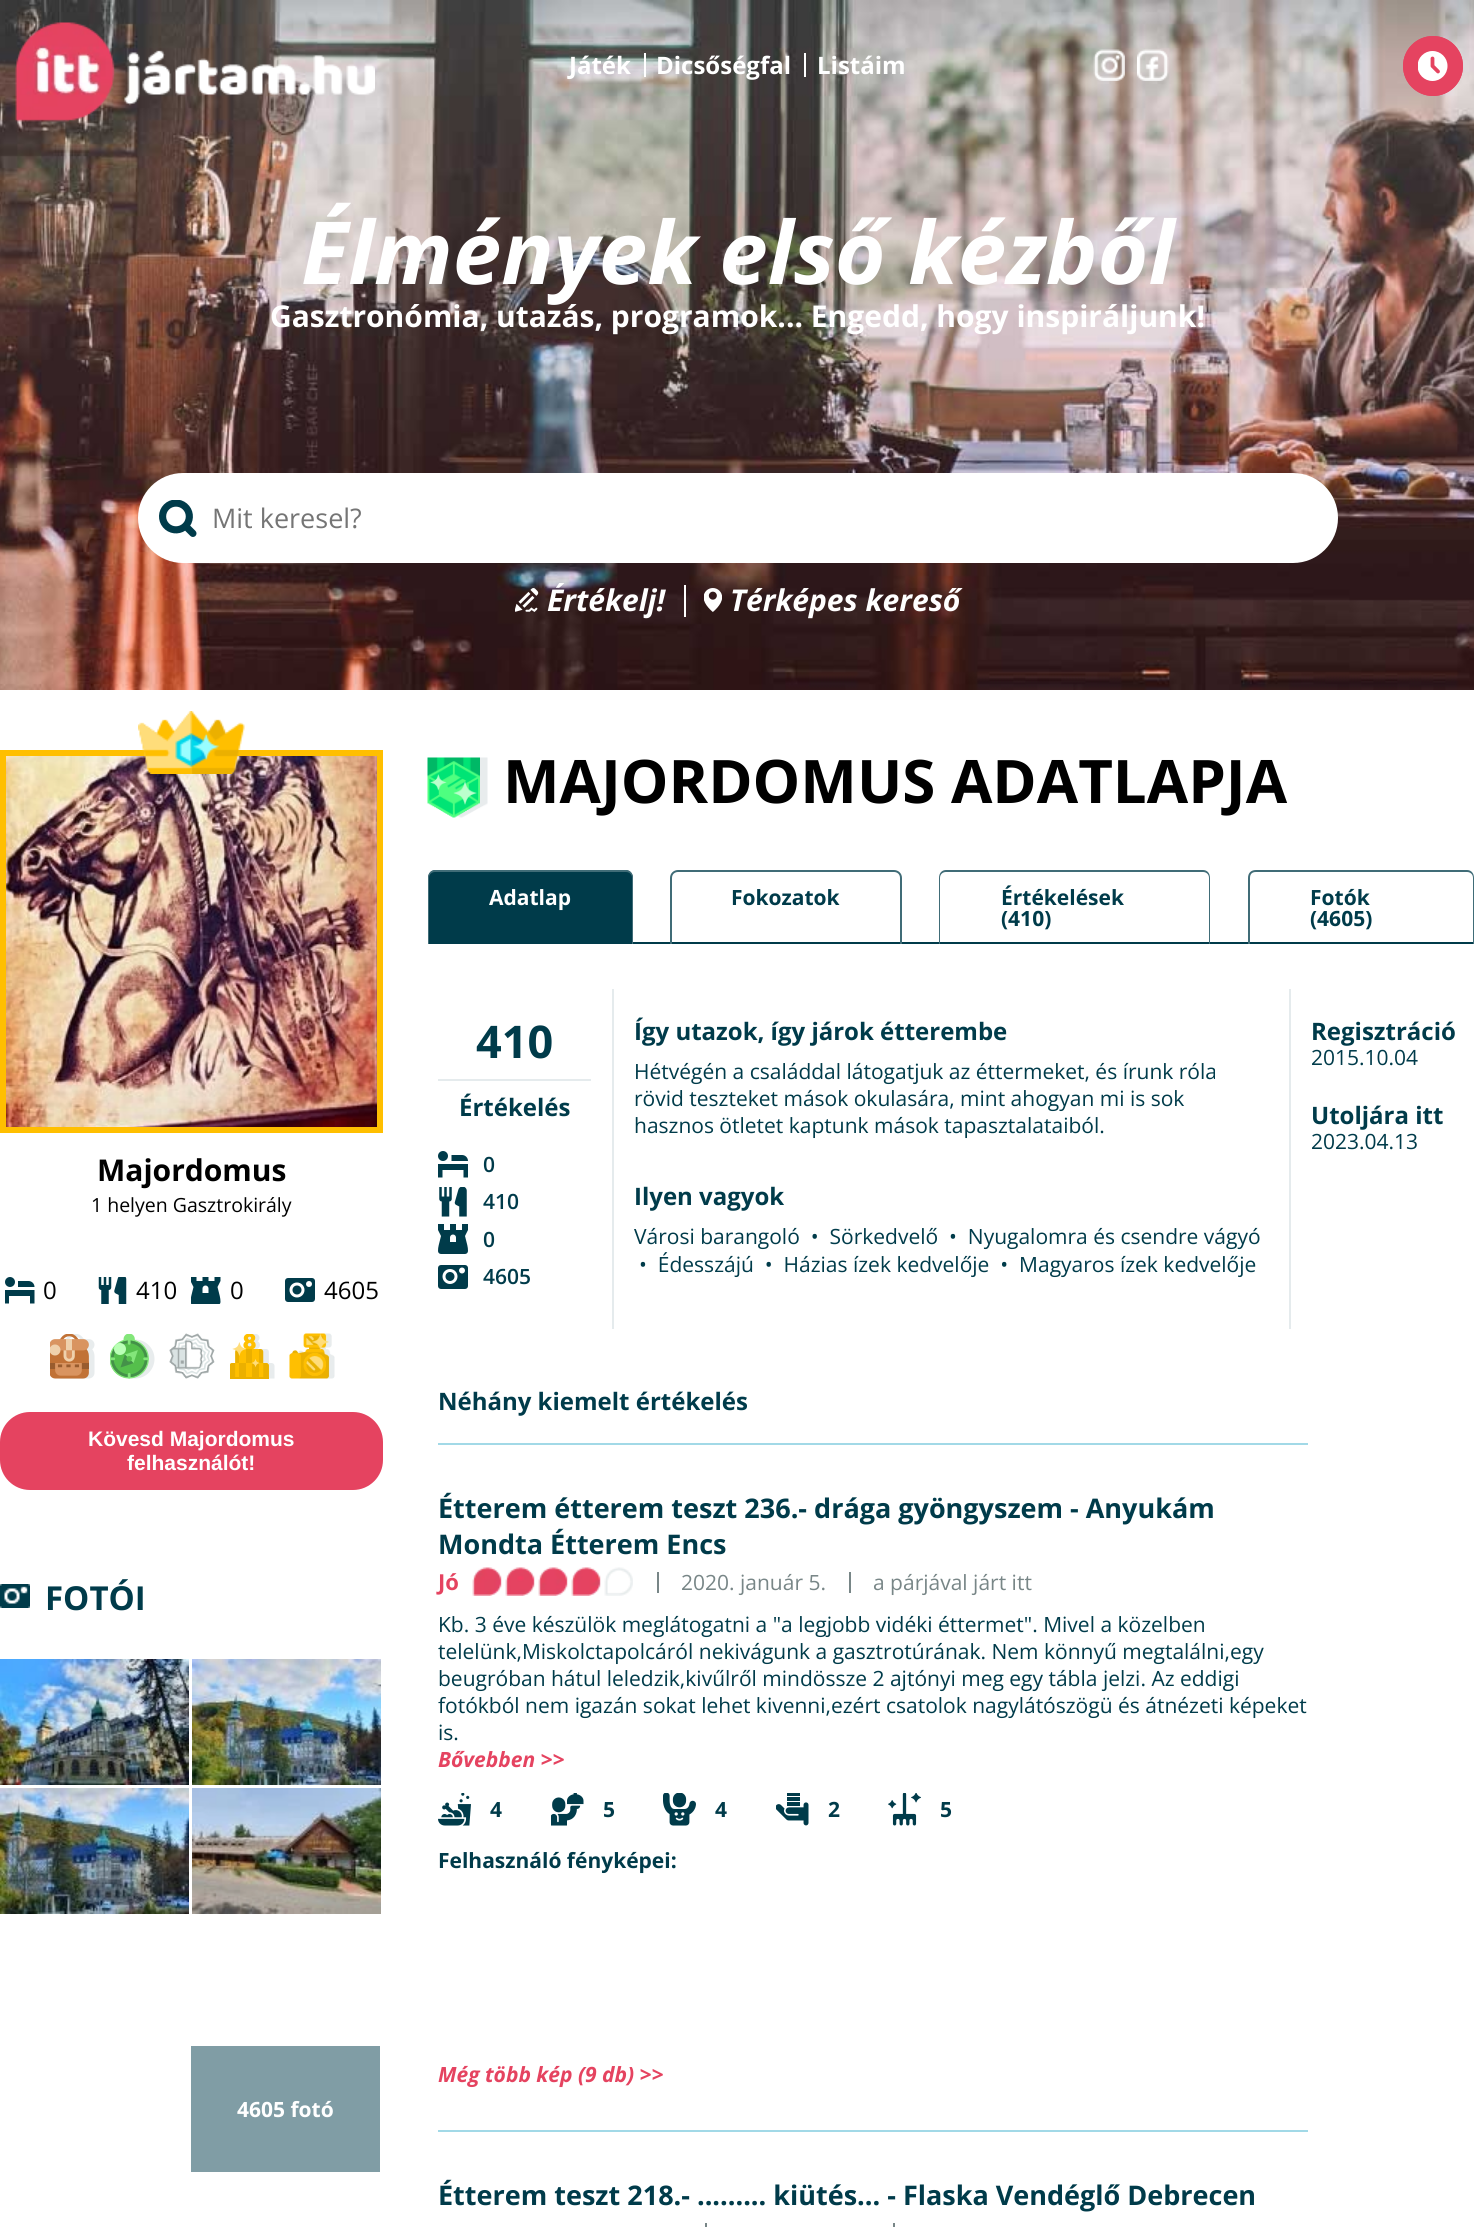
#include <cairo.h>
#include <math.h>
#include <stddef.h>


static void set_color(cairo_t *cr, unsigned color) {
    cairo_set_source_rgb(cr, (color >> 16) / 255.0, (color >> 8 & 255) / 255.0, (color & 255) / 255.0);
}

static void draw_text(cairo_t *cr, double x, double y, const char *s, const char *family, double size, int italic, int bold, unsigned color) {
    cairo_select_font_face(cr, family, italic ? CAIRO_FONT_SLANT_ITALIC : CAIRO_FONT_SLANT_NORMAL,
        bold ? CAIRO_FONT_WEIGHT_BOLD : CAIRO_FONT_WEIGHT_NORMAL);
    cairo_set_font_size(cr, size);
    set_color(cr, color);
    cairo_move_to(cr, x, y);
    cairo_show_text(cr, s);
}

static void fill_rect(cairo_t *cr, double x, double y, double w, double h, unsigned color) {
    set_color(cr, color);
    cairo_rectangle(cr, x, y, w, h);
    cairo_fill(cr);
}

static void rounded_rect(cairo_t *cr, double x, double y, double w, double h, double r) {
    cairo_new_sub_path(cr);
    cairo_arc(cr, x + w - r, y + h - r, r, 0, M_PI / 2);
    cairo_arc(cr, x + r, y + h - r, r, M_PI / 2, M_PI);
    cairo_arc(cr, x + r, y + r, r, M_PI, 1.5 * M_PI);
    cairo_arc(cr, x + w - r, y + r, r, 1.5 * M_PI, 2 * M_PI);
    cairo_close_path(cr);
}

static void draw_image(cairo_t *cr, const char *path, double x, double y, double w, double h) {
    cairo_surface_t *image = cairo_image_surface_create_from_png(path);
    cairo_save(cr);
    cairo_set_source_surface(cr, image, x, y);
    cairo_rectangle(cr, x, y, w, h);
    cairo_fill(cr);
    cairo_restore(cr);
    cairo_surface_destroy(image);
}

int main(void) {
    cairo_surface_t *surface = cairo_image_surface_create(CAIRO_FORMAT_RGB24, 1474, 2227);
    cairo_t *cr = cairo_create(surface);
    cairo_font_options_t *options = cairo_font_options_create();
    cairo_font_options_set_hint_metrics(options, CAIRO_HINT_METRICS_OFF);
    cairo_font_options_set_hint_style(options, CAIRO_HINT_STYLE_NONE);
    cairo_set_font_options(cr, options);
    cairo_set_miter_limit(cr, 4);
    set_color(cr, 0xFFFFFF);
    cairo_paint(cr);
    draw_image(cr, "assets/img1.png", 0, 0, 1474, 690);
    draw_image(cr, "assets/img2.png", 15, 22, 360, 100);
    fill_rect(cr, 644, 53, 2, 24, 0xFFFFFF);
    draw_text(cr, 569, 74, "Játék", "Open Sans", 24, 0, 1, 0xFFFFFF);
    fill_rect(cr, 804, 53, 2, 24, 0xFFFFFF);
    draw_text(cr, 656, 74, "Dicsőségfal", "Open Sans", 24, 0, 1, 0xFFFFFF);
    draw_text(cr, 817, 74, "Listáim", "Open Sans", 24, 0, 1, 0xFFFFFF);
    draw_image(cr, "assets/img3.png", 1093, 49, 32, 32);
    draw_image(cr, "assets/img4.png", 1137, 49, 32, 32);
    set_color(cr, 0xE54360);
    cairo_arc(cr, 1433, 66, 30, 0, 2 * M_PI);
    cairo_fill(cr);
    cairo_save(cr);
    cairo_rectangle(cr, 1418, 51, 30, 30);
    cairo_clip(cr);
    set_color(cr, 0xFFFFFF);
    cairo_arc(cr, 1432.5, 66, 15, 0, 2 * M_PI);
    cairo_fill(cr);
    cairo_restore(cr);
    cairo_new_path(cr);
    cairo_move_to(cr, 1432.5, 58.5);
    cairo_line_to(cr, 1432.5, 66);
    cairo_line_to(cr, 1438, 71.5);
    cairo_set_line_width(cr, 3.8);
    cairo_set_line_cap(cr, CAIRO_LINE_CAP_ROUND);
    cairo_set_line_join(cr, CAIRO_LINE_JOIN_ROUND);
    cairo_stroke(cr);
    cairo_arc(cr, 1433, 66, 28.5, 0, 2 * M_PI);
    cairo_set_line_width(cr, 3);
    cairo_set_line_cap(cr, CAIRO_LINE_CAP_BUTT);
    cairo_set_line_join(cr, CAIRO_LINE_JOIN_MITER);
    cairo_stroke(cr);
    draw_text(cr, 301, 284, "Élmények első kézből", "Open Sans", 87, 1, 1, 0xFFFFFF);
    draw_text(cr, 270, 327, "Gasztronómia, utazás, programok... Engedd, hogy inspiráljunk!", "Open Sans", 30, 0, 1, 0xFFFFFF);
    rounded_rect(cr, 138, 473, 1200, 90, 45);
    cairo_fill(cr);
    draw_image(cr, "assets/img5.png", 159, 500, 38, 37);
    draw_text(cr, 212, 528, "Mit keresel?", "Open Sans", 27, 0, 0, 0x757575);
    fill_rect(cr, 684, 585, 2, 32, 0xFFFFFF);
    draw_image(cr, "assets/img6.png", 515, 588, 24, 24);
    draw_text(cr, 547, 611, "Értékelj!", "Open Sans", 30, 1, 1, 0xFFFFFF);
    draw_image(cr, "assets/img7.png", 704, 588, 18, 24);
    draw_text(cr, 730, 611, "Térképes kereső", "Open Sans", 30, 1, 1, 0xFFFFFF);
    draw_image(cr, "assets/img9.png", 6, 756, 371, 371);
    cairo_rectangle(cr, 3, 753, 377, 377);
    set_color(cr, 0xFFBF00);
    cairo_set_line_width(cr, 6);
    cairo_stroke(cr);
    draw_image(cr, "assets/img8.png", 138, 711, 107, 63);
    draw_text(cr, 97, 1181, "Majordomus", "Open Sans", 30, 0, 1, 0x000000);
    draw_text(cr, 91, 1212, "1 helyen Gasztrokirály", "Open Sans", 19.5, 0, 0, 0x000000);
    draw_image(cr, "assets/img10.png", 5, 1277, 30, 27);
    draw_text(cr, 43, 1299, "0", "Open Sans", 24, 0, 0, 0x000000);
    draw_image(cr, "assets/img11.png", 98, 1277, 29, 27);
    draw_text(cr, 136, 1299, "410", "Open Sans", 24, 0, 0, 0x000000);
    draw_image(cr, "assets/img12.png", 191, 1277, 30, 27);
    draw_text(cr, 230, 1299, "0", "Open Sans", 24, 0, 0, 0x000000);
    draw_image(cr, "assets/img13.png", 285, 1278, 30, 24);
    draw_text(cr, 324, 1299, "4605", "Open Sans", 24, 0, 0, 0x000000);
    draw_image(cr, "assets/img14.png", 50, 1334, 45, 45);
    draw_image(cr, "assets/img15.png", 110, 1334, 45, 45);
    draw_image(cr, "assets/img16.png", 169, 1333, 46, 46);
    draw_image(cr, "assets/img17.png", 230, 1334, 45, 45);
    draw_image(cr, "assets/img18.png", 289, 1333, 46, 46);
    set_color(cr, 0xE54360);
    rounded_rect(cr, 0, 1412, 383, 78, 30);
    cairo_fill(cr);
    draw_text(cr, 88, 1446, "Kövesd Majordomus", "Liberation Sans", 21, 0, 1, 0xFFFFFF);
    draw_text(cr, 127, 1470, "felhasználót!", "Liberation Sans", 21, 0, 1, 0xFFFFFF);
    draw_image(cr, "assets/img19.png", 0, 1584, 30, 24);
    draw_text(cr, 45, 1610, "FOTÓI", "Open Sans", 33, 0, 1, 0x003B4A);
    draw_image(cr, "assets/img20.png", 0, 1659, 189, 126);
    draw_image(cr, "assets/img21.png", 192, 1659, 189, 126);
    draw_image(cr, "assets/img22.png", 0, 1788, 189, 126);
    draw_image(cr, "assets/img23.png", 192, 1788, 189, 126);
    fill_rect(cr, 191, 2046, 189, 126, 0x809DA5);
    draw_text(cr, 237, 2117, "4605 fotó", "Open Sans", 21, 0, 1, 0xFFFFFF);
    draw_image(cr, "assets/img24.png", 427, 757, 61, 61);
    draw_text(cr, 503, 803, "MAJORDOMUS ADATLAPJA", "Open Sans", 60, 0, 1, 0x000000);
    fill_rect(cr, 633, 942, 841, 2, 0x003B4A);
    cairo_new_path(cr);
    cairo_move_to(cr, 436, 870);
    cairo_line_to(cr, 625, 870);
    cairo_curve_to(cr, 629.5, 870, 633, 873.5, 633, 878);
    cairo_line_to(cr, 633, 944);
    cairo_line_to(cr, 428, 944);
    cairo_line_to(cr, 428, 878);
    cairo_curve_to(cr, 428, 873.5, 431.5, 870, 436, 870);
    cairo_close_path(cr);
    cairo_fill(cr);
    set_color(cr, 0x406C77);
    cairo_set_fill_rule(cr, CAIRO_FILL_RULE_EVEN_ODD);
    cairo_new_path(cr);
    cairo_move_to(cr, 435, 870);
    cairo_line_to(cr, 626, 870);
    cairo_curve_to(cr, 630, 870, 633, 873, 633, 878);
    cairo_line_to(cr, 633, 944);
    cairo_line_to(cr, 428, 944);
    cairo_line_to(cr, 428, 878);
    cairo_curve_to(cr, 428, 873, 431, 870, 435, 870);
    cairo_close_path(cr);
    cairo_move_to(cr, 435, 872);
    cairo_line_to(cr, 626, 872);
    cairo_curve_to(cr, 629, 872, 632, 874, 632, 878);
    cairo_line_to(cr, 632, 944);
    cairo_line_to(cr, 429, 944);
    cairo_line_to(cr, 429, 878);
    cairo_curve_to(cr, 429, 874, 432, 872, 435, 872);
    cairo_close_path(cr);
    cairo_fill(cr);
    draw_text(cr, 489, 905, "Adatlap", "Open Sans", 21, 0, 1, 0xFFFFFF);
    set_color(cr, 0x406C77);
    cairo_new_path(cr);
    cairo_move_to(cr, 678, 870);
    cairo_line_to(cr, 894, 870);
    cairo_curve_to(cr, 898, 870, 902, 873, 902, 878);
    cairo_line_to(cr, 902, 944);
    cairo_line_to(cr, 670, 944);
    cairo_line_to(cr, 670, 878);
    cairo_curve_to(cr, 670, 873, 674, 870, 678, 870);
    cairo_close_path(cr);
    cairo_move_to(cr, 678, 872);
    cairo_line_to(cr, 894, 872);
    cairo_curve_to(cr, 897, 872, 900, 874, 900, 878);
    cairo_line_to(cr, 900, 944);
    cairo_line_to(cr, 672, 944);
    cairo_line_to(cr, 672, 878);
    cairo_curve_to(cr, 672, 874, 675, 872, 678, 872);
    cairo_close_path(cr);
    cairo_fill(cr);
    draw_text(cr, 731, 905, "Fokozatok", "Open Sans", 21, 0, 1, 0x003B4A);
    set_color(cr, 0x406C77);
    cairo_new_path(cr);
    cairo_move_to(cr, 946, 870);
    cairo_line_to(cr, 1203, 870);
    cairo_curve_to(cr, 1207, 870, 1210, 873, 1210, 878);
    cairo_line_to(cr, 1210, 944);
    cairo_line_to(cr, 939, 944);
    cairo_line_to(cr, 939, 878);
    cairo_curve_to(cr, 939, 873, 942, 870, 946, 870);
    cairo_close_path(cr);
    cairo_move_to(cr, 946, 872);
    cairo_line_to(cr, 1203, 872);
    cairo_curve_to(cr, 1206, 872, 1209, 874, 1209, 878);
    cairo_line_to(cr, 1209, 944);
    cairo_line_to(cr, 940, 944);
    cairo_line_to(cr, 940, 878);
    cairo_curve_to(cr, 940, 874, 943, 872, 946, 872);
    cairo_close_path(cr);
    cairo_fill(cr);
    draw_text(cr, 1001, 905, "Értékelések", "Open Sans", 21, 0, 1, 0x003B4A);
    draw_text(cr, 1001, 926, "(410)", "Open Sans", 21, 0, 1, 0x003B4A);
    set_color(cr, 0x406C77);
    cairo_new_path(cr);
    cairo_move_to(cr, 1256, 870);
    cairo_line_to(cr, 1467, 870);
    cairo_curve_to(cr, 1471, 870, 1474, 873, 1474, 878);
    cairo_line_to(cr, 1474, 944);
    cairo_line_to(cr, 1248, 944);
    cairo_line_to(cr, 1248, 878);
    cairo_curve_to(cr, 1248, 873, 1251, 870, 1256, 870);
    cairo_close_path(cr);
    cairo_move_to(cr, 1256, 872);
    cairo_line_to(cr, 1467, 872);
    cairo_curve_to(cr, 1470, 872, 1473, 874, 1473, 878);
    cairo_line_to(cr, 1473, 944);
    cairo_line_to(cr, 1250, 944);
    cairo_line_to(cr, 1250, 878);
    cairo_curve_to(cr, 1250, 874, 1252, 872, 1256, 872);
    cairo_close_path(cr);
    cairo_fill(cr);
    draw_text(cr, 1310, 905, "Fotók", "Open Sans", 21, 0, 1, 0x003B4A);
    draw_text(cr, 1310, 926, "(4605)", "Open Sans", 21, 0, 1, 0x003B4A);
    draw_text(cr, 476, 1058, "410", "Open Sans", 45, 0, 1, 0x003B4A);
    fill_rect(cr, 438, 1079, 153, 2, 0xE5EBED);
    draw_text(cr, 459, 1116, "Értékelés", "Open Sans", 24, 0, 1, 0x003B4A);
    draw_image(cr, "assets/img25.png", 438, 1151, 30, 27);
    draw_text(cr, 483, 1172, "0", "Open Sans SemiBold", 21, 0, 0, 0x003B4A);
    draw_image(cr, "assets/img26.png", 439, 1187, 28, 30);
    draw_text(cr, 483, 1209, "410", "Open Sans SemiBold", 21, 0, 0, 0x003B4A);
    draw_image(cr, "assets/img27.png", 438, 1224, 30, 30);
    draw_text(cr, 483, 1247, "0", "Open Sans SemiBold", 21, 0, 0, 0x003B4A);
    draw_image(cr, "assets/img28.png", 438, 1265, 30, 24);
    draw_text(cr, 483, 1284, "4605", "Open Sans SemiBold", 21, 0, 0, 0x003B4A);
    fill_rect(cr, 1289, 989, 2, 340, 0xE5EBED);
    fill_rect(cr, 612, 989, 2, 340, 0xE5EBED);
    draw_text(cr, 634, 1040, "Így utazok, így járok étterembe", "Open Sans", 24, 0, 1, 0x003B4A);
    draw_text(cr, 634, 1079, "Hétvégén a családdal látogatjuk az éttermeket, és írunk róla", "Open Sans", 21, 0, 0, 0x003B4A);
    draw_text(cr, 634, 1106, "rövid teszteket mások okulasára, mint ahogyan mi is sok", "Open Sans", 21, 0, 0, 0x003B4A);
    draw_text(cr, 634, 1133, "hasznos ötletet kaptunk mások tapasztalataiból.", "Open Sans", 21, 0, 0, 0x003B4A);
    draw_text(cr, 634, 1205, "Ilyen vagyok", "Open Sans", 24, 0, 1, 0x003B4A);
    draw_text(cr, 634, 1244, "Városi barangoló  •  Sörkedvelő  •  Nyugalomra és csendre vágyó", "Open Sans", 21, 0, 0, 0x003B4A);
    draw_text(cr, 639, 1272, "•  Édesszájú  •  Házias ízek kedvelője  •  Magyaros ízek kedvelője", "Open Sans", 21, 0, 0, 0x003B4A);
    draw_text(cr, 1311, 1040, "Regisztráció", "Open Sans", 24, 0, 1, 0x003B4A);
    draw_text(cr, 1311, 1065, "2015.10.04", "Open Sans", 21, 0, 0, 0x003B4A);
    draw_text(cr, 1311, 1124, "Utoljára itt", "Open Sans", 24, 0, 1, 0x003B4A);
    draw_text(cr, 1311, 1149, "2023.04.13", "Open Sans", 21, 0, 0, 0x003B4A);
    draw_text(cr, 438, 1410, "Néhány kiemelt értékelés", "Open Sans", 24, 0, 1, 0x003B4A);
    fill_rect(cr, 438, 1443, 870, 2, 0xA2D9E7);
    draw_text(cr, 438, 1518, "Étterem étterem teszt 236.- drága gyöngyszem - Anyukám", "Open Sans", 27, 0, 1, 0x003B4A);
    draw_text(cr, 438, 1554, "Mondta Étterem Encs", "Open Sans", 27, 0, 1, 0x003B4A);
    draw_text(cr, 438, 1590, "Jó", "Open Sans", 22, 0, 1, 0xE54360);
    draw_image(cr, "assets/img29.png", 472, 1567, 161, 29);
    fill_rect(cr, 657, 1572, 2, 21, 0x788687);
    draw_text(cr, 681, 1590, "2020. január 5.", "Open Sans", 21, 0, 0, 0x788687);
    fill_rect(cr, 849, 1572, 2, 21, 0x788687);
    draw_text(cr, 873, 1590, "a párjával járt itt", "Open Sans", 21, 0, 0, 0x788687);
    draw_text(cr, 438, 1632, "Kb. 3 éve készülök meglátogatni a \"a legjobb vidéki éttermet\". Mivel a közelben", "Open Sans", 21, 0, 0, 0x003B4A);
    draw_text(cr, 438, 1659, "telelünk,Miskolctapolcáról nekivágunk a gasztrotúrának. Nem könnyű megtalálni,egy", "Open Sans", 21, 0, 0, 0x003B4A);
    draw_text(cr, 438, 1686, "beugróban hátul leledzik,kivűlről mindössze 2 ajtónyi meg egy tábla jelzi. Az eddigi", "Open Sans", 21, 0, 0, 0x003B4A);
    draw_text(cr, 438, 1713, "fotókból nem igazán sokat lehet kivenni,ezért csatolok nagylátószögü és átnézeti képeket", "Open Sans", 21, 0, 0, 0x003B4A);
    draw_text(cr, 438, 1740, "is.", "Open Sans", 21, 0, 0, 0x003B4A);
    draw_text(cr, 438, 1767, "Bővebben >>", "Open Sans", 21, 1, 1, 0xE54360);
    draw_image(cr, "assets/img30.png", 438, 1793, 33, 33);
    draw_text(cr, 490, 1817, "4", "Open Sans", 21, 0, 1, 0x003B4A);
    draw_image(cr, "assets/img31.png", 551, 1793, 33, 33);
    draw_text(cr, 603, 1817, "5", "Open Sans", 21, 0, 1, 0x003B4A);
    draw_image(cr, "assets/img32.png", 663, 1793, 33, 33);
    draw_text(cr, 715, 1817, "4", "Open Sans", 21, 0, 1, 0x003B4A);
    draw_image(cr, "assets/img33.png", 776, 1793, 33, 33);
    draw_text(cr, 828, 1817, "2", "Open Sans", 21, 0, 1, 0x003B4A);
    draw_image(cr, "assets/img34.png", 888, 1793, 33, 33);
    draw_text(cr, 940, 1817, "5", "Open Sans", 21, 0, 1, 0x003B4A);
    draw_text(cr, 438, 1868, "Felhasználó fényképei:", "Open Sans", 21, 0, 1, 0x003B4A);
    draw_text(cr, 438, 2082, "Még több kép (9 db) >>", "Open Sans", 21, 1, 1, 0xE54360);
    fill_rect(cr, 438, 2130, 870, 2, 0xA2D9E7);
    draw_text(cr, 438, 2205, "Étterem teszt 218.- ......... kiütés... - Flaska Vendéglő Debrecen", "Open Sans", 27, 0, 1, 0x003B4A);
    fill_rect(cr, 705, 2223, 2, 4, 0x788687);
    fill_rect(cr, 893, 2223, 2, 4, 0x788687);
    cairo_surface_write_to_png(surface, "output.png");
    cairo_font_options_destroy(options);
    cairo_destroy(cr);
    cairo_surface_destroy(surface);
    return 0;
}
